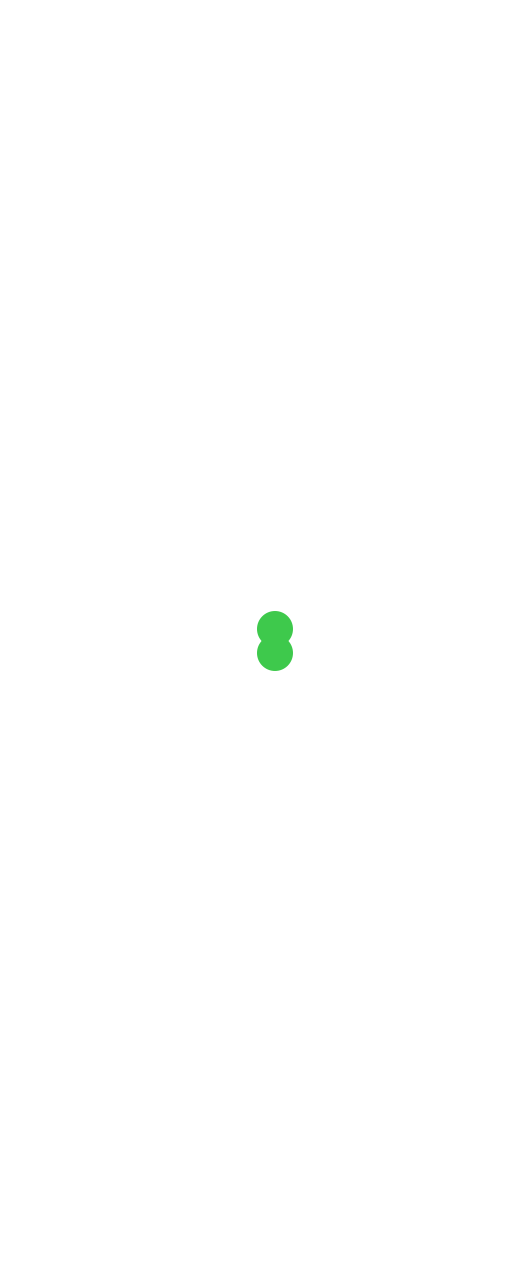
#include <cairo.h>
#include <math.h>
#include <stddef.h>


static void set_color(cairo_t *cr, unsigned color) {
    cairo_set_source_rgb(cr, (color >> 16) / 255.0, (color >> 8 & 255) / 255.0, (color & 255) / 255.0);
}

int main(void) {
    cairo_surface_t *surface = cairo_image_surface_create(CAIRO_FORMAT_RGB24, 514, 1282);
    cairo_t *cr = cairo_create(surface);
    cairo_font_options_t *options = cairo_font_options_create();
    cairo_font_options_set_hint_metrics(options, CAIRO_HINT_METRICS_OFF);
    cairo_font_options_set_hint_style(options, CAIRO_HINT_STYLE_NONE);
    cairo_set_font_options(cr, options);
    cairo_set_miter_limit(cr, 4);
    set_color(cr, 0xFFFFFF);
    cairo_paint(cr);
    set_color(cr, 0x3EC94C);
    cairo_arc(cr, 275, 629, 18, 0, 2 * M_PI);
    cairo_fill(cr);
    cairo_arc(cr, 275, 653, 18, 0, 2 * M_PI);
    cairo_fill(cr);
    cairo_surface_write_to_png(surface, "output.png");
    cairo_font_options_destroy(options);
    cairo_destroy(cr);
    cairo_surface_destroy(surface);
    return 0;
}
